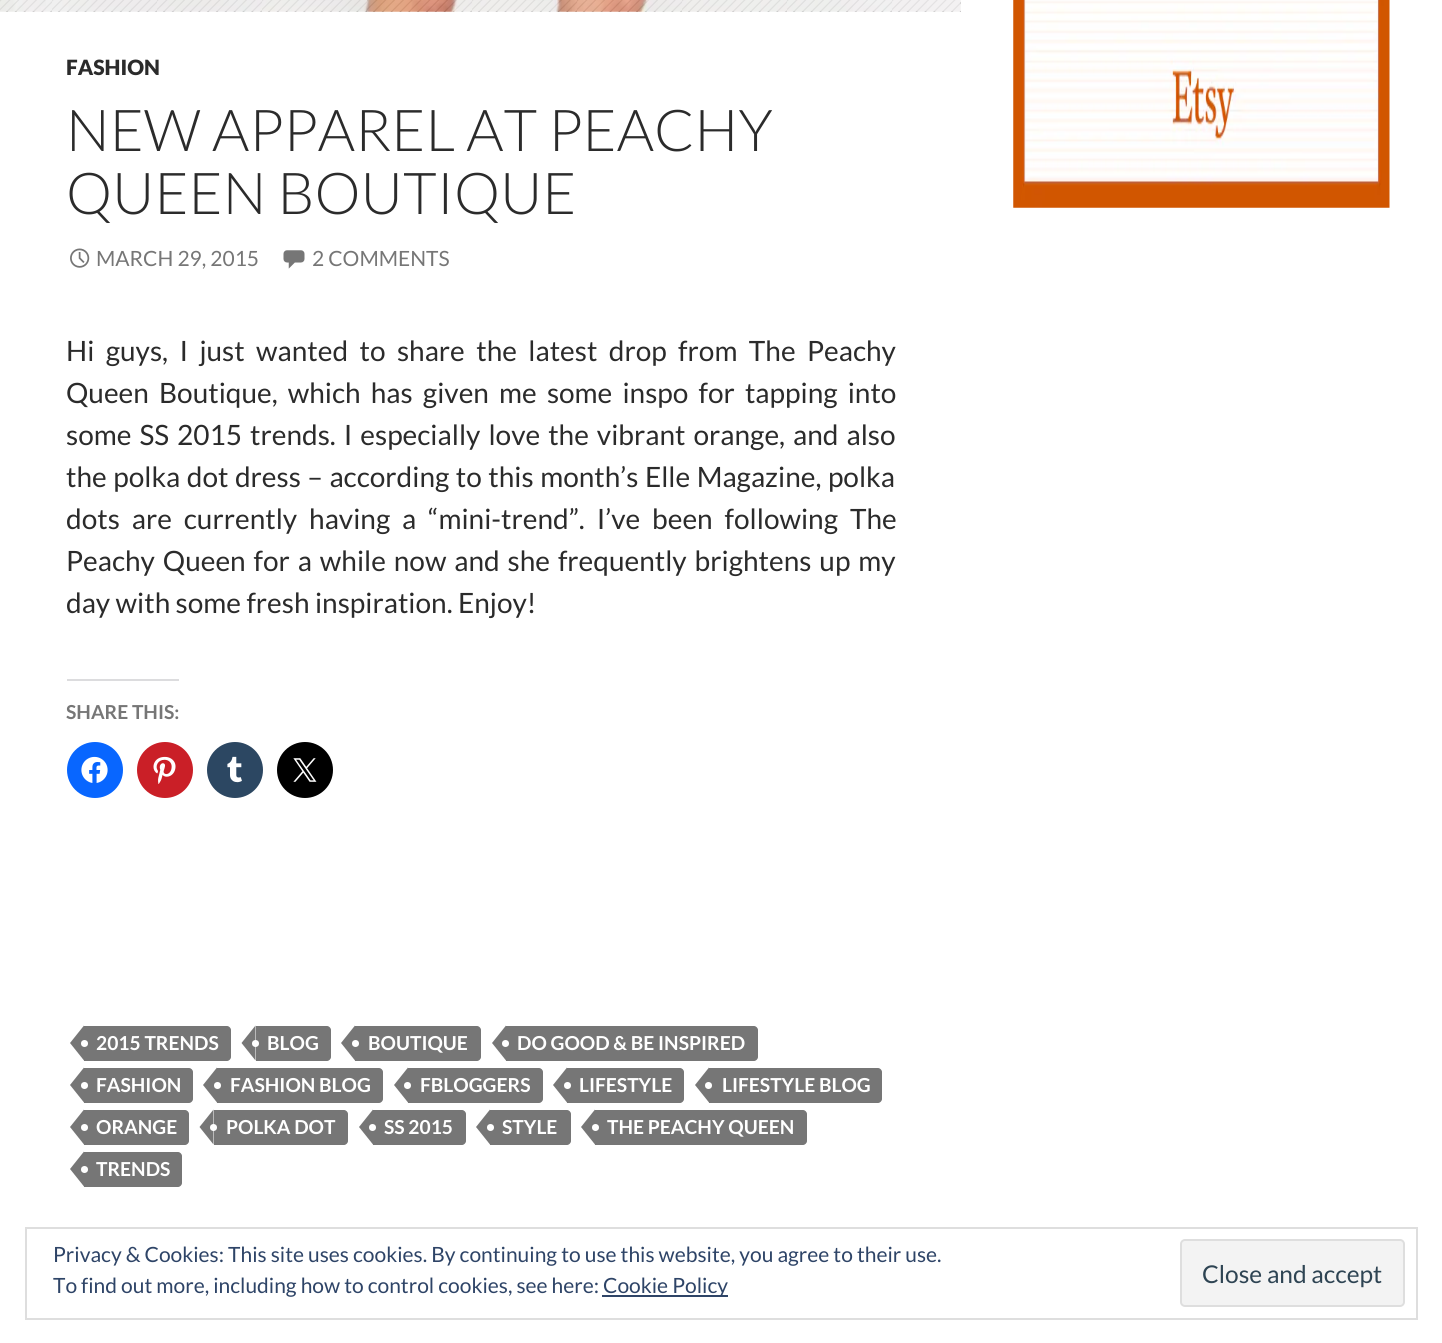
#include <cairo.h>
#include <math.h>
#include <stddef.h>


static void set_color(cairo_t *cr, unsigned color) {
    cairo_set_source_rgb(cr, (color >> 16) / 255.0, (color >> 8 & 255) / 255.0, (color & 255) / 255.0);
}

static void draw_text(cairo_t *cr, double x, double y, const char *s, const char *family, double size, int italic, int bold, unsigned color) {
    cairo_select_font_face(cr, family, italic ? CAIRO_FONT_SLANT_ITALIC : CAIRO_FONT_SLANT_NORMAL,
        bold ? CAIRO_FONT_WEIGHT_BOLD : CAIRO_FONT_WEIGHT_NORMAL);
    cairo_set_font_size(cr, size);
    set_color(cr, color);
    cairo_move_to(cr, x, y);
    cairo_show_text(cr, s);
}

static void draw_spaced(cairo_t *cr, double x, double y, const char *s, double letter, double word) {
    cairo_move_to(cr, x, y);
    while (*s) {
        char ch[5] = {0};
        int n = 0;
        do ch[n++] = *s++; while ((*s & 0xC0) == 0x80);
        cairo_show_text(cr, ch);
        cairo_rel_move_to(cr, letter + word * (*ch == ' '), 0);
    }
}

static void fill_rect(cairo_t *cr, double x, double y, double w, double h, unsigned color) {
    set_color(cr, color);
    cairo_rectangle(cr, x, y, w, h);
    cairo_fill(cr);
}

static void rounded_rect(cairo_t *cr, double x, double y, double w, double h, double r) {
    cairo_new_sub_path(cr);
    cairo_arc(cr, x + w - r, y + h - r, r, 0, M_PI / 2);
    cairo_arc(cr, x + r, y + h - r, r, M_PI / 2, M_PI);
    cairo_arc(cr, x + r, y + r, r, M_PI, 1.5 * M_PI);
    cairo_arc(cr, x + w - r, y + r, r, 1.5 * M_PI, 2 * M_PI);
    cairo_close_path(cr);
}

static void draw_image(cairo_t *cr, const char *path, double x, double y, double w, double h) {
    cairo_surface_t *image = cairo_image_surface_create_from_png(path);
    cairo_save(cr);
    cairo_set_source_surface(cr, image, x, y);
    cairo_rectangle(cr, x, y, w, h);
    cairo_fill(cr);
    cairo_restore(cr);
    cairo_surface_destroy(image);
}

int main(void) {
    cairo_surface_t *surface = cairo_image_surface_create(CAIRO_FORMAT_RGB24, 1442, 1343);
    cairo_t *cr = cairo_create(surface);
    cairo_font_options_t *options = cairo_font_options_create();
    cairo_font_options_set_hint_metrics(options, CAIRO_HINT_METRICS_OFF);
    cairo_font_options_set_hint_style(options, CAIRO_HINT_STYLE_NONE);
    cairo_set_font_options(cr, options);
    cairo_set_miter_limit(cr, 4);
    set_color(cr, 0xFFFFFF);
    cairo_paint(cr);
    fill_rect(cr, 0, 0, 961, 12, 0x999999);
    draw_image(cr, "assets/img1.png", 0, 0, 961, 12);
    draw_image(cr, "assets/img2.png", 0, 0, 961, 12);
    draw_text(cr, 66, 75, "FASHION", "Lato Black", 21, 0, 0, 0x2B2B2B);
    draw_text(cr, 66, 151, "NEW APPAREL AT PEACHY", "Lato Light", 57.75, 0, 0, 0x2B2B2B);
    draw_text(cr, 66, 214, "QUEEN BOUTIQUE", "Lato Light", 57.75, 0, 0, 0x2B2B2B);
    draw_image(cr, "assets/img3.png", 70, 248, 20, 20);
    draw_text(cr, 96, 266, "MARCH 29, 2015", "Lato", 21, 0, 0, 0x767676);
    draw_image(cr, "assets/img4.png", 283, 250, 22, 19);
    draw_text(cr, 312, 266, "2 COMMENTS", "Lato", 21, 0, 0, 0x767676);
    cairo_set_font_size(cr, 28);
    set_color(cr, 0x2B2B2B);
    draw_spaced(cr, 66, 361, "Hi guys, I just wanted to share the latest drop from The Peachy", 0, 6);
    draw_spaced(cr, 66, 403, "Queen Boutique, which has given me some inspo for tapping into", 0, 4.75);
    draw_spaced(cr, 66, 445, "some SS 2015 trends. I especially love the vibrant orange, and also", 0, 2.6);
    draw_spaced(cr, 66, 487, "the polka dot dress – according to this month’s Elle Magazine, polka", 0, 1.1);
    draw_spaced(cr, 66, 529, "dots are currently having a “mini-trend”. I’ve been following The", 0, 6.5);
    draw_spaced(cr, 66, 571, "Peachy Queen for a while now and she frequently brightens up my", 0, 2.5);
    draw_text(cr, 66, 613, "day with some fresh inspiration. Enjoy!", "Lato", 28, 0, 0, 0x2B2B2B);
    fill_rect(cr, 67, 679, 112, 2, 0xDCDCDE);
    draw_text(cr, 66, 719, "SHARE THIS:", "Lato", 19.25, 0, 1, 0x767676);
    set_color(cr, 0x0866FF);
    cairo_new_path(cr);
    cairo_arc(cr, 95, 770, 28, 0, 2 * M_PI);
    cairo_fill(cr);
    draw_image(cr, "assets/img5.png", 81, 756, 27, 27);
    set_color(cr, 0xCA1F27);
    cairo_arc(cr, 165, 770, 28, 0, 2 * M_PI);
    cairo_fill(cr);
    draw_image(cr, "assets/img6.png", 153, 756, 23, 28);
    set_color(cr, 0x2C4762);
    cairo_arc(cr, 235, 770, 28, 0, 2 * M_PI);
    cairo_fill(cr);
    draw_image(cr, "assets/img7.png", 227, 756, 15, 27);
    set_color(cr, 0x000000);
    cairo_arc(cr, 305, 770, 28, 0, 2 * M_PI);
    cairo_fill(cr);
    draw_image(cr, "assets/img8.png", 293, 758, 24, 24);
    set_color(cr, 0x767676);
    cairo_new_path(cr);
    cairo_move_to(cr, 84, 1026);
    cairo_line_to(cr, 227, 1026);
    cairo_curve_to(cr, 229, 1026, 231, 1028, 231, 1030);
    cairo_line_to(cr, 231, 1057);
    cairo_curve_to(cr, 231, 1059, 229, 1061, 227, 1061);
    cairo_line_to(cr, 84, 1061);
    cairo_close_path(cr);
    cairo_fill(cr);
    cairo_new_path(cr);
    cairo_move_to(cr, 84, 1025.5);
    cairo_line_to(cr, 84, 1060.5);
    cairo_line_to(cr, 70, 1043);
    cairo_close_path(cr);
    cairo_fill(cr);
    set_color(cr, 0xFFFFFF);
    cairo_arc(cr, 84.5, 1043.5, 3.5, 0, 2 * M_PI);
    cairo_fill(cr);
    draw_text(cr, 96, 1050, "2015 TRENDS", "Lato", 19.25, 0, 1, 0xFFFFFF);
    set_color(cr, 0x767676);
    cairo_new_path(cr);
    cairo_move_to(cr, 256, 1026);
    cairo_line_to(cr, 327, 1026);
    cairo_curve_to(cr, 329, 1026, 331, 1028, 331, 1030);
    cairo_line_to(cr, 331, 1057);
    cairo_curve_to(cr, 331, 1059, 329, 1061, 327, 1061);
    cairo_line_to(cr, 256, 1061);
    cairo_close_path(cr);
    cairo_fill(cr);
    cairo_new_path(cr);
    cairo_move_to(cr, 255.5, 1025.5);
    cairo_line_to(cr, 255.5, 1060.5);
    cairo_line_to(cr, 241.5, 1043);
    cairo_close_path(cr);
    cairo_fill(cr);
    draw_text(cr, 267, 1050, "BLOG", "Lato", 19.25, 0, 1, 0xFFFFFF);
    cairo_new_path(cr);
    cairo_arc(cr, 255.5, 1043.5, 3.5, 0, 2 * M_PI);
    cairo_fill(cr);
    set_color(cr, 0x767676);
    cairo_new_path(cr);
    cairo_move_to(cr, 355, 1026);
    cairo_line_to(cr, 477, 1026);
    cairo_curve_to(cr, 479, 1026, 481, 1028, 481, 1030);
    cairo_line_to(cr, 481, 1057);
    cairo_curve_to(cr, 481, 1059, 479, 1061, 477, 1061);
    cairo_line_to(cr, 355, 1061);
    cairo_close_path(cr);
    cairo_fill(cr);
    cairo_new_path(cr);
    cairo_move_to(cr, 355, 1025.5);
    cairo_line_to(cr, 355, 1060.5);
    cairo_line_to(cr, 341, 1043);
    cairo_close_path(cr);
    cairo_fill(cr);
    set_color(cr, 0xFFFFFF);
    cairo_arc(cr, 355.5, 1043.5, 3.5, 0, 2 * M_PI);
    cairo_fill(cr);
    draw_text(cr, 368, 1050, "BOUTIQUE", "Lato", 19.25, 0, 1, 0xFFFFFF);
    set_color(cr, 0x767676);
    cairo_new_path(cr);
    cairo_move_to(cr, 506, 1026);
    cairo_line_to(cr, 754, 1026);
    cairo_curve_to(cr, 756, 1026, 758, 1028, 758, 1030);
    cairo_line_to(cr, 758, 1057);
    cairo_curve_to(cr, 758, 1059, 756, 1061, 754, 1061);
    cairo_line_to(cr, 506, 1061);
    cairo_close_path(cr);
    cairo_fill(cr);
    cairo_new_path(cr);
    cairo_move_to(cr, 506, 1025.5);
    cairo_line_to(cr, 506, 1060.5);
    cairo_line_to(cr, 492, 1043);
    cairo_close_path(cr);
    cairo_fill(cr);
    draw_text(cr, 517, 1050, "DO GOOD & BE INSPIRED", "Lato", 19.25, 0, 1, 0xFFFFFF);
    cairo_new_path(cr);
    cairo_arc(cr, 505.5, 1043.5, 3.5, 0, 2 * M_PI);
    cairo_fill(cr);
    set_color(cr, 0x767676);
    cairo_new_path(cr);
    cairo_move_to(cr, 84, 1068);
    cairo_line_to(cr, 189, 1068);
    cairo_curve_to(cr, 191, 1068, 193, 1070, 193, 1072);
    cairo_line_to(cr, 193, 1099);
    cairo_curve_to(cr, 193, 1101, 191, 1103, 189, 1103);
    cairo_line_to(cr, 84, 1103);
    cairo_close_path(cr);
    cairo_fill(cr);
    cairo_new_path(cr);
    cairo_move_to(cr, 84, 1067.5);
    cairo_line_to(cr, 84, 1102.5);
    cairo_line_to(cr, 70, 1085);
    cairo_close_path(cr);
    cairo_fill(cr);
    set_color(cr, 0xFFFFFF);
    cairo_arc(cr, 84.5, 1085.5, 3.5, 0, 2 * M_PI);
    cairo_fill(cr);
    draw_text(cr, 96, 1092, "FASHION", "Lato", 19.25, 0, 1, 0xFFFFFF);
    set_color(cr, 0x767676);
    cairo_new_path(cr);
    cairo_move_to(cr, 217, 1068);
    cairo_line_to(cr, 379, 1068);
    cairo_curve_to(cr, 381, 1068, 383, 1070, 383, 1072);
    cairo_line_to(cr, 383, 1099);
    cairo_curve_to(cr, 383, 1101, 381, 1103, 379, 1103);
    cairo_line_to(cr, 217, 1103);
    cairo_close_path(cr);
    cairo_fill(cr);
    cairo_new_path(cr);
    cairo_move_to(cr, 217, 1067.5);
    cairo_line_to(cr, 217, 1102.5);
    cairo_line_to(cr, 203, 1085);
    cairo_close_path(cr);
    cairo_fill(cr);
    set_color(cr, 0xFFFFFF);
    cairo_arc(cr, 217.5, 1085.5, 3.5, 0, 2 * M_PI);
    cairo_fill(cr);
    draw_text(cr, 230, 1092, "FASHION BLOG", "Lato", 19.25, 0, 1, 0xFFFFFF);
    set_color(cr, 0x767676);
    cairo_new_path(cr);
    cairo_move_to(cr, 408, 1068);
    cairo_line_to(cr, 539, 1068);
    cairo_curve_to(cr, 541, 1068, 543, 1070, 543, 1072);
    cairo_line_to(cr, 543, 1099);
    cairo_curve_to(cr, 543, 1101, 541, 1103, 539, 1103);
    cairo_line_to(cr, 408, 1103);
    cairo_close_path(cr);
    cairo_fill(cr);
    cairo_new_path(cr);
    cairo_move_to(cr, 408, 1067.5);
    cairo_line_to(cr, 408, 1102.5);
    cairo_line_to(cr, 394, 1085);
    cairo_close_path(cr);
    cairo_fill(cr);
    draw_text(cr, 420, 1092, "FBLOGGERS", "Lato", 19.25, 0, 1, 0xFFFFFF);
    cairo_new_path(cr);
    cairo_arc(cr, 407.5, 1085.5, 3.5, 0, 2 * M_PI);
    cairo_fill(cr);
    set_color(cr, 0x767676);
    cairo_new_path(cr);
    cairo_move_to(cr, 567, 1068);
    cairo_line_to(cr, 680, 1068);
    cairo_curve_to(cr, 682, 1068, 684, 1070, 684, 1072);
    cairo_line_to(cr, 684, 1099);
    cairo_curve_to(cr, 684, 1101, 682, 1103, 680, 1103);
    cairo_line_to(cr, 567, 1103);
    cairo_close_path(cr);
    cairo_fill(cr);
    cairo_new_path(cr);
    cairo_move_to(cr, 567, 1067.5);
    cairo_line_to(cr, 567, 1102.5);
    cairo_line_to(cr, 553, 1085);
    cairo_close_path(cr);
    cairo_fill(cr);
    set_color(cr, 0xFFFFFF);
    cairo_arc(cr, 567.5, 1085.5, 3.5, 0, 2 * M_PI);
    cairo_fill(cr);
    draw_text(cr, 579, 1092, "LIFESTYLE", "Lato", 19.25, 0, 1, 0xFFFFFF);
    set_color(cr, 0x767676);
    cairo_new_path(cr);
    cairo_move_to(cr, 709, 1068);
    cairo_line_to(cr, 878, 1068);
    cairo_curve_to(cr, 880, 1068, 882, 1070, 882, 1072);
    cairo_line_to(cr, 882, 1099);
    cairo_curve_to(cr, 882, 1101, 880, 1103, 878, 1103);
    cairo_line_to(cr, 709, 1103);
    cairo_close_path(cr);
    cairo_fill(cr);
    cairo_new_path(cr);
    cairo_move_to(cr, 709, 1067.5);
    cairo_line_to(cr, 709, 1102.5);
    cairo_line_to(cr, 695, 1085);
    cairo_close_path(cr);
    cairo_fill(cr);
    draw_text(cr, 722, 1092, "LIFESTYLE BLOG", "Lato", 19.25, 0, 1, 0xFFFFFF);
    cairo_new_path(cr);
    cairo_arc(cr, 708.5, 1085.5, 3.5, 0, 2 * M_PI);
    cairo_fill(cr);
    set_color(cr, 0x767676);
    cairo_new_path(cr);
    cairo_move_to(cr, 84, 1110);
    cairo_line_to(cr, 185, 1110);
    cairo_curve_to(cr, 187, 1110, 189, 1112, 189, 1114);
    cairo_line_to(cr, 189, 1141);
    cairo_curve_to(cr, 189, 1143, 187, 1145, 185, 1145);
    cairo_line_to(cr, 84, 1145);
    cairo_close_path(cr);
    cairo_fill(cr);
    cairo_new_path(cr);
    cairo_move_to(cr, 84, 1109.5);
    cairo_line_to(cr, 84, 1144.5);
    cairo_line_to(cr, 70, 1127);
    cairo_close_path(cr);
    cairo_fill(cr);
    set_color(cr, 0xFFFFFF);
    cairo_arc(cr, 84.5, 1127.5, 3.5, 0, 2 * M_PI);
    cairo_fill(cr);
    draw_text(cr, 96, 1134, "ORANGE", "Lato", 19.25, 0, 1, 0xFFFFFF);
    set_color(cr, 0x767676);
    cairo_new_path(cr);
    cairo_move_to(cr, 214, 1110);
    cairo_line_to(cr, 344, 1110);
    cairo_curve_to(cr, 346, 1110, 348, 1112, 348, 1114);
    cairo_line_to(cr, 348, 1141);
    cairo_curve_to(cr, 348, 1143, 346, 1145, 344, 1145);
    cairo_line_to(cr, 214, 1145);
    cairo_close_path(cr);
    cairo_fill(cr);
    cairo_new_path(cr);
    cairo_move_to(cr, 213.5, 1109.5);
    cairo_line_to(cr, 213.5, 1144.5);
    cairo_line_to(cr, 199.5, 1127);
    cairo_close_path(cr);
    cairo_fill(cr);
    draw_text(cr, 226, 1134, "POLKA DOT", "Lato", 19.25, 0, 1, 0xFFFFFF);
    cairo_new_path(cr);
    cairo_arc(cr, 213.5, 1127.5, 3.5, 0, 2 * M_PI);
    cairo_fill(cr);
    set_color(cr, 0x767676);
    cairo_new_path(cr);
    cairo_move_to(cr, 373, 1110);
    cairo_line_to(cr, 462, 1110);
    cairo_curve_to(cr, 464, 1110, 466, 1112, 466, 1114);
    cairo_line_to(cr, 466, 1141);
    cairo_curve_to(cr, 466, 1143, 464, 1145, 462, 1145);
    cairo_line_to(cr, 373, 1145);
    cairo_close_path(cr);
    cairo_fill(cr);
    cairo_new_path(cr);
    cairo_move_to(cr, 373, 1109.5);
    cairo_line_to(cr, 373, 1144.5);
    cairo_line_to(cr, 359, 1127);
    cairo_close_path(cr);
    cairo_fill(cr);
    draw_text(cr, 384, 1134, "SS 2015", "Lato", 19.25, 0, 1, 0xFFFFFF);
    cairo_new_path(cr);
    cairo_arc(cr, 372.5, 1127.5, 3.5, 0, 2 * M_PI);
    cairo_fill(cr);
    set_color(cr, 0x767676);
    cairo_new_path(cr);
    cairo_move_to(cr, 490, 1110);
    cairo_line_to(cr, 567, 1110);
    cairo_curve_to(cr, 569, 1110, 571, 1112, 571, 1114);
    cairo_line_to(cr, 571, 1141);
    cairo_curve_to(cr, 571, 1143, 569, 1145, 567, 1145);
    cairo_line_to(cr, 490, 1145);
    cairo_close_path(cr);
    cairo_fill(cr);
    cairo_new_path(cr);
    cairo_move_to(cr, 490, 1109.5);
    cairo_line_to(cr, 490, 1144.5);
    cairo_line_to(cr, 476, 1127);
    cairo_close_path(cr);
    cairo_fill(cr);
    set_color(cr, 0xFFFFFF);
    cairo_arc(cr, 490.5, 1127.5, 3.5, 0, 2 * M_PI);
    cairo_fill(cr);
    draw_text(cr, 502, 1134, "STYLE", "Lato", 19.25, 0, 1, 0xFFFFFF);
    set_color(cr, 0x767676);
    cairo_new_path(cr);
    cairo_move_to(cr, 595, 1110);
    cairo_line_to(cr, 803, 1110);
    cairo_curve_to(cr, 805, 1110, 807, 1112, 807, 1114);
    cairo_line_to(cr, 807, 1141);
    cairo_curve_to(cr, 807, 1143, 805, 1145, 803, 1145);
    cairo_line_to(cr, 595, 1145);
    cairo_close_path(cr);
    cairo_fill(cr);
    cairo_new_path(cr);
    cairo_move_to(cr, 595, 1109.5);
    cairo_line_to(cr, 595, 1144.5);
    cairo_line_to(cr, 581, 1127);
    cairo_close_path(cr);
    cairo_fill(cr);
    set_color(cr, 0xFFFFFF);
    cairo_arc(cr, 595.5, 1127.5, 3.5, 0, 2 * M_PI);
    cairo_fill(cr);
    draw_text(cr, 607, 1134, "THE PEACHY QUEEN", "Lato", 19.25, 0, 1, 0xFFFFFF);
    set_color(cr, 0x767676);
    cairo_new_path(cr);
    cairo_move_to(cr, 84, 1152);
    cairo_line_to(cr, 178, 1152);
    cairo_curve_to(cr, 180, 1152, 182, 1154, 182, 1156);
    cairo_line_to(cr, 182, 1183);
    cairo_curve_to(cr, 182, 1185, 180, 1187, 178, 1187);
    cairo_line_to(cr, 84, 1187);
    cairo_close_path(cr);
    cairo_fill(cr);
    cairo_new_path(cr);
    cairo_move_to(cr, 84, 1151.5);
    cairo_line_to(cr, 84, 1186.5);
    cairo_line_to(cr, 70, 1169);
    cairo_close_path(cr);
    cairo_fill(cr);
    set_color(cr, 0xFFFFFF);
    cairo_arc(cr, 84.5, 1169.5, 3.5, 0, 2 * M_PI);
    cairo_fill(cr);
    draw_text(cr, 96, 1176, "TRENDS", "Lato", 19.25, 0, 1, 0xFFFFFF);
    draw_image(cr, "assets/img9.png", 1013, 0, 377, 208);
    cairo_rectangle(cr, 26, 1228, 1391, 91);
    set_color(cr, 0xDEDEDE);
    cairo_stroke(cr);
    draw_text(cr, 53, 1262, "Privacy & Cookies: This site uses cookies. By continuing to use this website, you agree to their use.", "Lato", 21, 0, 0, 0x2E4467);
    draw_text(cr, 53, 1293, "To find out more, including how to control cookies, see here:", "Lato", 21, 0, 0, 0x2E4467);
    fill_rect(cr, 602, 1295, 126, 2, 0x2E4467);
    draw_text(cr, 603, 1293, "Cookie Policy", "Lato", 21, 0, 0, 0x2E4467);
    set_color(cr, 0xF3F3F3);
    rounded_rect(cr, 1181, 1240, 223, 66, 4);
    cairo_fill_preserve(cr);
    set_color(cr, 0xDEDEDE);
    cairo_stroke(cr);
    draw_text(cr, 1202, 1283, "Close and accept", "Lato", 24.5, 0, 0, 0x2E4453);
    cairo_surface_write_to_png(surface, "output.png");
    cairo_font_options_destroy(options);
    cairo_destroy(cr);
    cairo_surface_destroy(surface);
    return 0;
}
